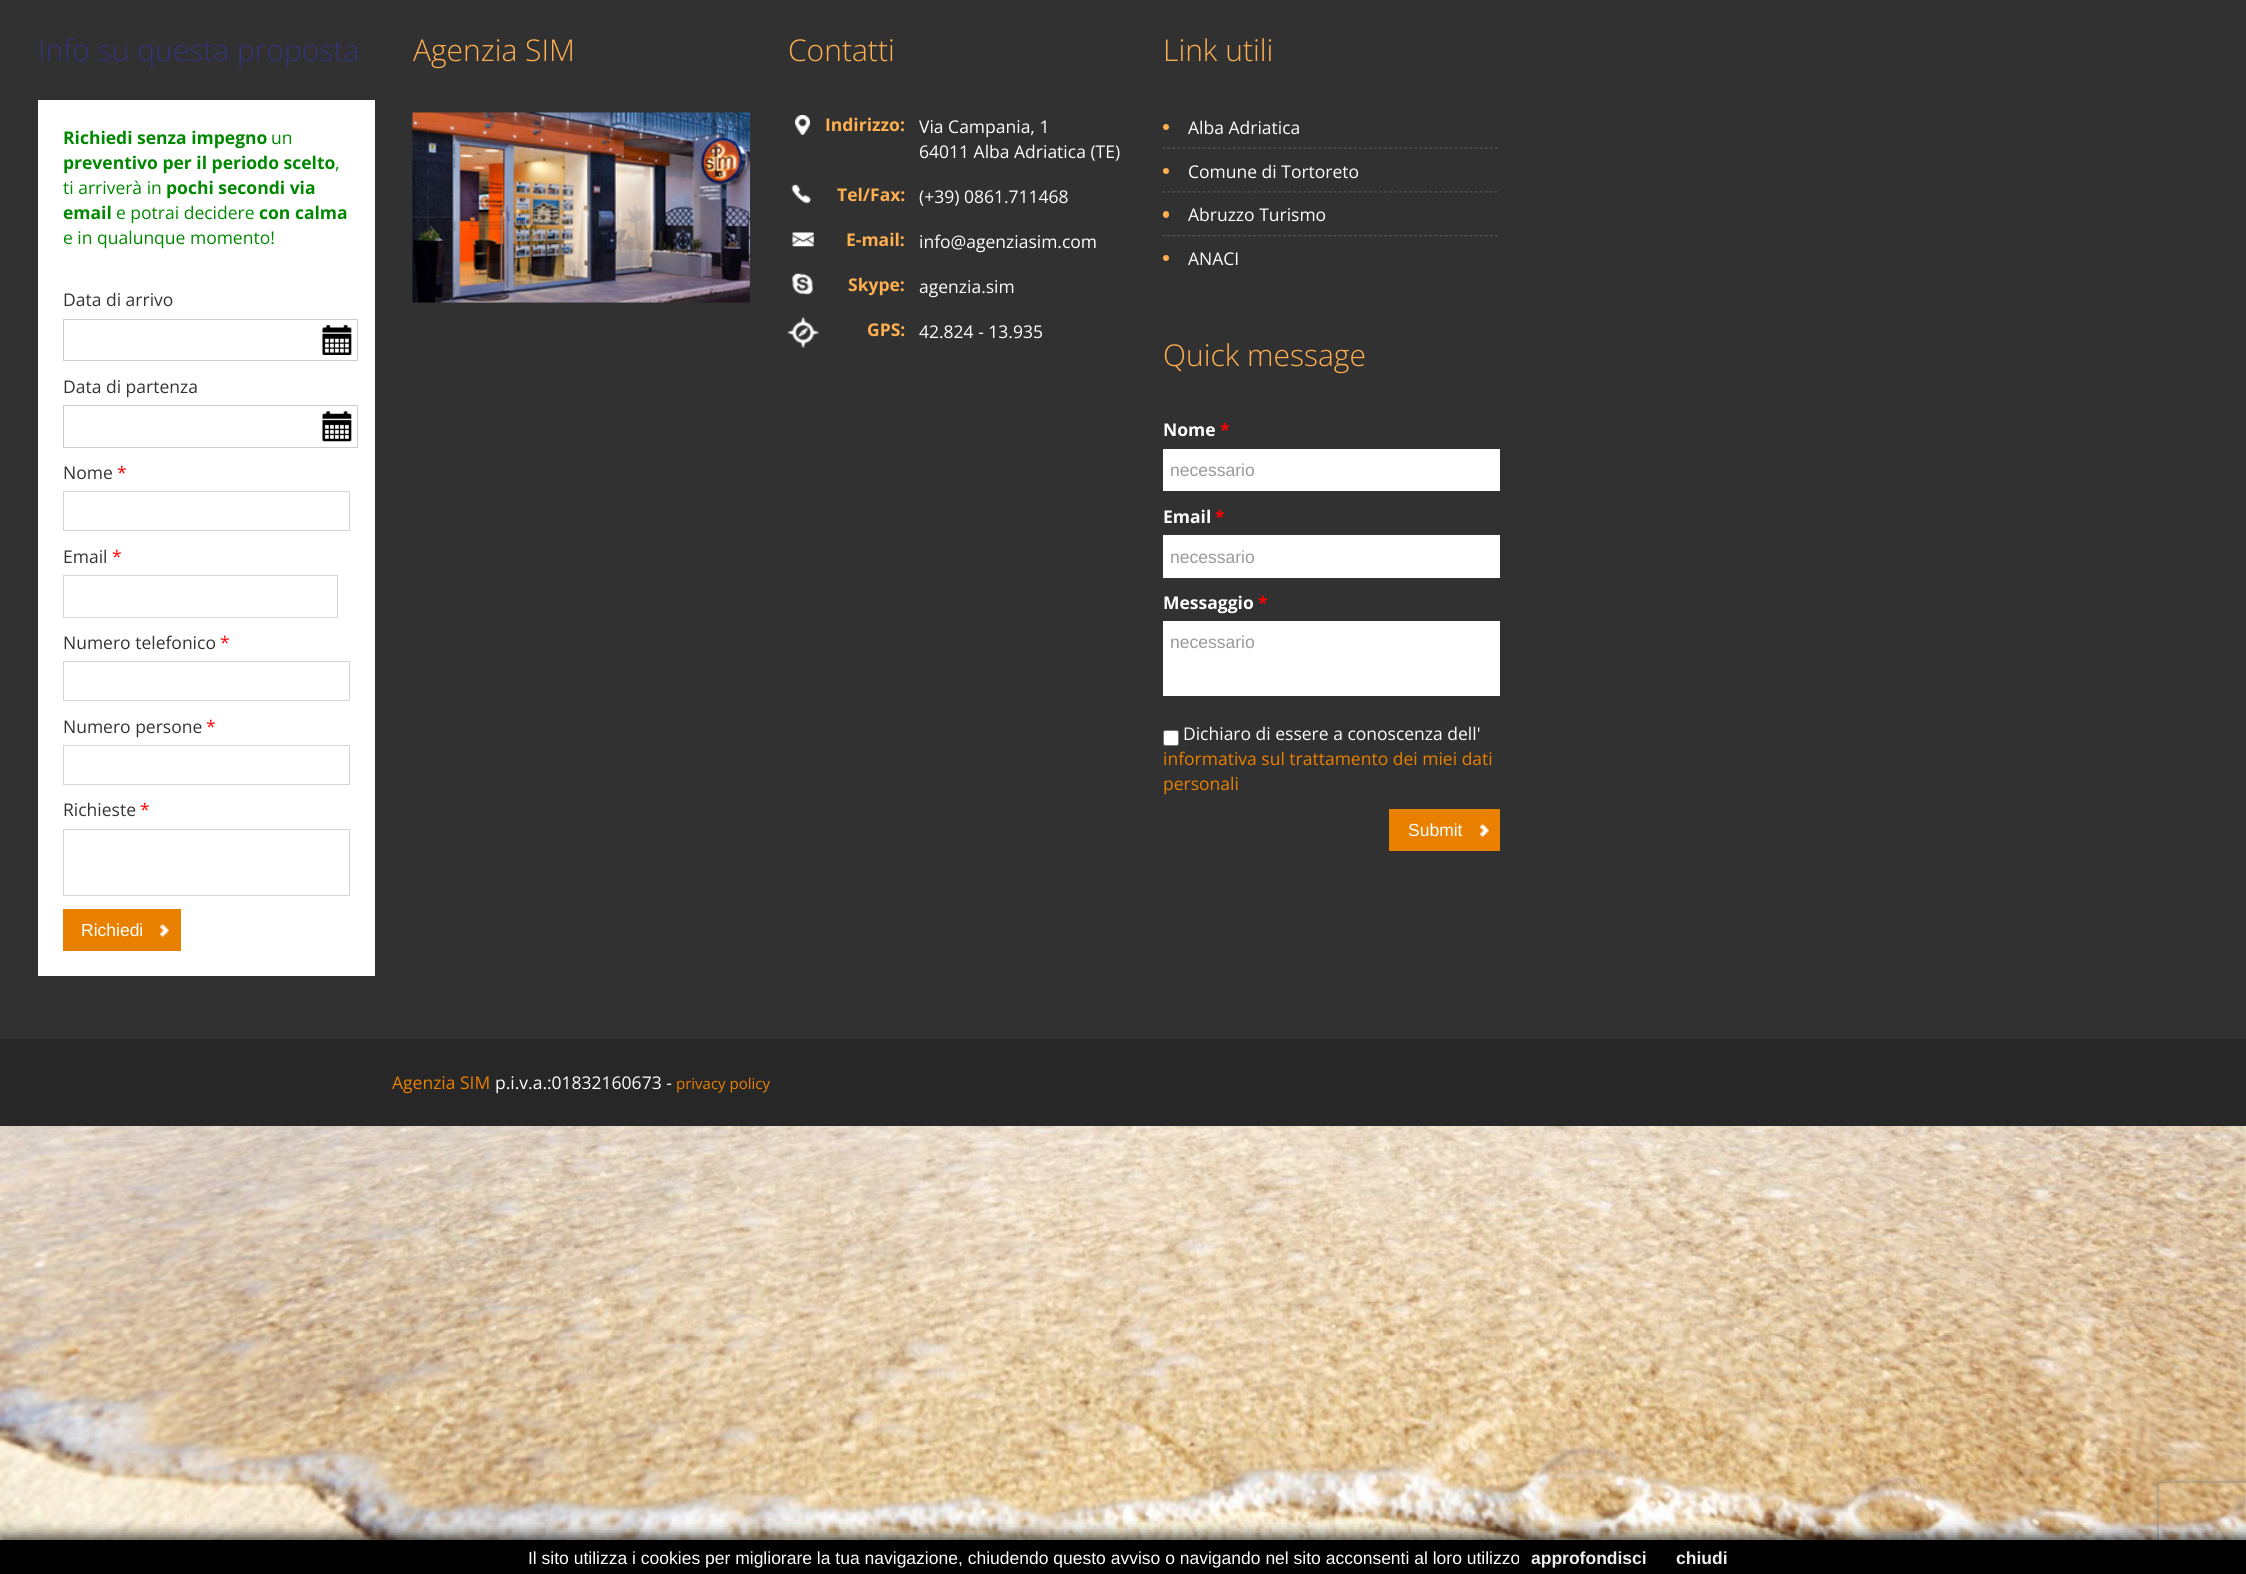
#include <cairo.h>
#include <math.h>
#include <stddef.h>


static void set_color(cairo_t *cr, unsigned color) {
    cairo_set_source_rgb(cr, (color >> 16) / 255.0, (color >> 8 & 255) / 255.0, (color & 255) / 255.0);
}

static void draw_text(cairo_t *cr, double x, double y, const char *s, const char *family, double size, int italic, int bold, unsigned color) {
    cairo_select_font_face(cr, family, italic ? CAIRO_FONT_SLANT_ITALIC : CAIRO_FONT_SLANT_NORMAL,
        bold ? CAIRO_FONT_WEIGHT_BOLD : CAIRO_FONT_WEIGHT_NORMAL);
    cairo_set_font_size(cr, size);
    set_color(cr, color);
    cairo_move_to(cr, x, y);
    cairo_show_text(cr, s);
}

static void fill_rect(cairo_t *cr, double x, double y, double w, double h, unsigned color) {
    set_color(cr, color);
    cairo_rectangle(cr, x, y, w, h);
    cairo_fill(cr);
}

static void rounded_rect(cairo_t *cr, double x, double y, double w, double h, double r) {
    cairo_new_sub_path(cr);
    cairo_arc(cr, x + w - r, y + h - r, r, 0, M_PI / 2);
    cairo_arc(cr, x + r, y + h - r, r, M_PI / 2, M_PI);
    cairo_arc(cr, x + r, y + r, r, M_PI, 1.5 * M_PI);
    cairo_arc(cr, x + w - r, y + r, r, 1.5 * M_PI, 2 * M_PI);
    cairo_close_path(cr);
}

static void draw_shadow(cairo_t *cr, double x, double y, double w, double h, double r, double blur, double alpha) {
    cairo_push_group_with_content(cr, CAIRO_CONTENT_ALPHA);
    cairo_set_operator(cr, CAIRO_OPERATOR_SOURCE);
    for (int i = 15; i >= -15 && fmin(w, h) + blur * i / 3 > 0; i -= 2) {
        double e = blur * i / 6;
        cairo_set_source_rgba(cr, 0, 0, 0, alpha * erfc((i - 1) / 8.5) / 2);
        rounded_rect(cr, x - e, y - e, w + 2 * e, h + 2 * e, fmax(0, fmin(r + e + blur * .6, fmin(w, h) / 2 + e)));
        cairo_fill(cr);
    }
    cairo_pattern_t *soft = cairo_pop_group(cr);
    cairo_mask(cr, soft);
    cairo_pattern_destroy(soft);
}

static void draw_image(cairo_t *cr, const char *path, double x, double y, double w, double h) {
    cairo_surface_t *image = cairo_image_surface_create_from_png(path);
    cairo_save(cr);
    cairo_set_source_surface(cr, image, x, y);
    cairo_rectangle(cr, x, y, w, h);
    cairo_fill(cr);
    cairo_restore(cr);
    cairo_surface_destroy(image);
}

int main(void) {
    cairo_surface_t *surface = cairo_image_surface_create(CAIRO_FORMAT_RGB24, 2246, 1574);
    cairo_t *cr = cairo_create(surface);
    cairo_font_options_t *options = cairo_font_options_create();
    cairo_font_options_set_hint_metrics(options, CAIRO_HINT_METRICS_OFF);
    cairo_font_options_set_hint_style(options, CAIRO_HINT_STYLE_NONE);
    cairo_set_font_options(cr, options);
    cairo_set_miter_limit(cr, 4);
    set_color(cr, 0xFFFFFF);
    cairo_paint(cr);
    draw_image(cr, "assets/img1.png", 0, 1126, 2246, 414);
    fill_rect(cr, 0, 0, 2246, 1039, 0x313131);
    draw_text(cr, 38, 61, "Info su questa proposta", "Open Sans Light", 30, 0, 0, 0x333377);
    fill_rect(cr, 38, 100, 337, 876, 0xFFFFFF);
    draw_text(cr, 63, 144, "Richiedi senza impegno", "Open Sans", 17.5, 0, 1, 0x008800);
    draw_text(cr, 271, 144, "un", "Open Sans", 17.5, 0, 0, 0x008800);
    draw_text(cr, 63, 169, "preventivo per il periodo scelto", "Open Sans", 17.5, 0, 1, 0x008800);
    draw_text(cr, 335, 169, ",", "Open Sans", 17.5, 0, 0, 0x008800);
    draw_text(cr, 63, 194, "ti arriverà in", "Open Sans", 17.5, 0, 0, 0x008800);
    draw_text(cr, 166, 194, "pochi secondi via", "Open Sans", 17.5, 0, 1, 0x008800);
    draw_text(cr, 63, 219, "email", "Open Sans", 17.5, 0, 1, 0x008800);
    draw_text(cr, 116, 219, "e potrai decidere", "Open Sans", 17.5, 0, 0, 0x008800);
    draw_text(cr, 259, 219, "con calma", "Open Sans", 17.5, 0, 1, 0x008800);
    draw_text(cr, 63, 244, "e in qualunque momento!", "Open Sans", 17.5, 0, 0, 0x008800);
    draw_text(cr, 63, 306, "Data di arrivo", "Open Sans", 17.5, 0, 0, 0x333333);
    draw_image(cr, "assets/img2.png", 322, 325, 30, 30);
    cairo_rectangle(cr, 63.5, 319.5, 294, 41);
    set_color(cr, 0xCCCCCC);
    cairo_set_line_width(cr, 1);
    cairo_stroke(cr);
    draw_text(cr, 63, 393, "Data di partenza", "Open Sans", 17.5, 0, 0, 0x333333);
    draw_image(cr, "assets/img3.png", 322, 411, 30, 31);
    cairo_rectangle(cr, 63.5, 405.5, 294, 42);
    set_color(cr, 0xCCCCCC);
    cairo_stroke(cr);
    draw_text(cr, 63, 479, "Nome", "Open Sans", 17.5, 0, 0, 0x333333);
    draw_text(cr, 117, 479, "*", "Open Sans", 17.5, 0, 0, 0xFF0000);
    cairo_rectangle(cr, 63.5, 491.5, 286, 39);
    set_color(cr, 0xD5D5D5);
    cairo_stroke(cr);
    draw_text(cr, 63, 563, "Email", "Open Sans", 17.5, 0, 0, 0x333333);
    draw_text(cr, 112, 563, "*", "Open Sans", 17.5, 0, 0, 0xFF0000);
    cairo_rectangle(cr, 63.5, 575.5, 274, 42);
    set_color(cr, 0xD5D5D5);
    cairo_stroke(cr);
    draw_text(cr, 63, 649, "Numero telefonico", "Open Sans", 17.5, 0, 0, 0x333333);
    draw_text(cr, 220, 649, "*", "Open Sans", 17.5, 0, 0, 0xFF0000);
    cairo_rectangle(cr, 63.5, 661.5, 286, 39);
    set_color(cr, 0xD5D5D5);
    cairo_stroke(cr);
    draw_text(cr, 63, 733, "Numero persone", "Open Sans", 17.5, 0, 0, 0x333333);
    draw_text(cr, 206, 733, "*", "Open Sans", 17.5, 0, 0, 0xFF0000);
    cairo_rectangle(cr, 63.5, 745.5, 286, 39);
    set_color(cr, 0xD5D5D5);
    cairo_stroke(cr);
    draw_text(cr, 63, 816, "Richieste", "Open Sans", 17.5, 0, 0, 0x333333);
    draw_text(cr, 140, 816, "*", "Open Sans", 17.5, 0, 0, 0xFF0000);
    cairo_rectangle(cr, 63.5, 829.5, 286, 66);
    set_color(cr, 0xD5D5D5);
    cairo_stroke(cr);
    fill_rect(cr, 63, 909, 118, 42, 0xE98000);
    draw_image(cr, "assets/img4.png", 160, 923, 9, 15);
    draw_text(cr, 81, 936, "Richiedi", "Liberation Sans", 17.5, 0, 0, 0xFFFFFF);
    fill_rect(cr, 0, 1039, 2246, 87, 0x272727);
    draw_text(cr, 413, 61, "Agenzia SIM", "Open Sans Light", 30, 0, 0, 0xFFAF50);
    draw_image(cr, "assets/img5.png", 412, 112, 338, 191);
    draw_text(cr, 788, 61, "Contatti", "Open Sans Light", 30, 0, 0, 0xFFAF50);
    draw_image(cr, "assets/img6.png", 795, 115, 15, 20);
    draw_text(cr, 825, 131, "Indirizzo:", "Open Sans", 17.5, 0, 1, 0xFFAF50);
    draw_text(cr, 919, 133, "Via Campania, 1", "Open Sans", 17.5, 0, 0, 0xFFFFFF);
    draw_text(cr, 919, 158, "64011 Alba Adriatica (TE)", "Open Sans", 17.5, 0, 0, 0xFFFFFF);
    draw_image(cr, "assets/img7.png", 791, 183, 21, 21);
    draw_text(cr, 837, 201, "Tel/Fax:", "Open Sans", 17.5, 0, 1, 0xFFAF50);
    draw_text(cr, 919, 203, "(+39) 0861.711468", "Open Sans", 17.5, 0, 0, 0xFFFFFF);
    draw_image(cr, "assets/img8.png", 792, 232, 22, 15);
    draw_text(cr, 846, 246, "E-mail:", "Open Sans", 17.5, 0, 1, 0xFFAF50);
    draw_text(cr, 919, 248, "info@agenziasim.com", "Open Sans", 17.5, 0, 0, 0xFFFFFF);
    draw_image(cr, "assets/img9.png", 791, 273, 22, 22);
    draw_text(cr, 848, 291, "Skype:", "Open Sans", 17.5, 0, 1, 0xFFAF50);
    draw_text(cr, 919, 293, "agenzia.sim", "Open Sans", 17.5, 0, 0, 0xFFFFFF);
    draw_image(cr, "assets/img10.png", 787, 317, 32, 31);
    draw_text(cr, 867, 336, "GPS:", "Open Sans", 17.5, 0, 1, 0xFFAF50);
    draw_text(cr, 919, 338, "42.824 - 13.935", "Open Sans", 17.5, 0, 0, 0xFFFFFF);
    draw_text(cr, 1163, 61, "Link utili", "Open Sans Light", 30, 0, 0, 0xFFAF50);
    draw_image(cr, "assets/img11.png", 1162, 147, 336, 2);
    cairo_arc(cr, 1166, 127, 3, 0, 2 * M_PI);
    cairo_fill(cr);
    draw_text(cr, 1188, 134, "Alba Adriatica", "Open Sans", 17.5, 0, 0, 0xFFFFFF);
    draw_image(cr, "assets/img12.png", 1162, 191, 336, 2);
    set_color(cr, 0xFFAF50);
    cairo_arc(cr, 1166, 171, 3, 0, 2 * M_PI);
    cairo_fill(cr);
    draw_text(cr, 1188, 178, "Comune di Tortoreto", "Open Sans", 17.5, 0, 0, 0xFFFFFF);
    draw_image(cr, "assets/img13.png", 1162, 235, 336, 2);
    set_color(cr, 0xFFAF50);
    rounded_rect(cr, 1163, 211, 6, 7, 3);
    cairo_fill(cr);
    draw_text(cr, 1188, 221, "Abruzzo Turismo", "Open Sans", 17.5, 0, 0, 0xFFFFFF);
    set_color(cr, 0xFFAF50);
    cairo_new_path(cr);
    cairo_arc(cr, 1166, 258, 3, 0, 2 * M_PI);
    cairo_fill(cr);
    draw_text(cr, 1188, 265, "ANACI", "Open Sans", 17.5, 0, 0, 0xFFFFFF);
    draw_text(cr, 1163, 366, "Quick message", "Open Sans Light", 30, 0, 0, 0xFFAF50);
    draw_text(cr, 1163, 436, "Nome", "Open Sans", 17.5, 0, 1, 0xFFFFFF);
    draw_text(cr, 1220, 436, "*", "Open Sans", 17.5, 0, 1, 0xFF0000);
    fill_rect(cr, 1163, 449, 337, 42, 0xFFFFFF);
    draw_text(cr, 1170, 476, "necessario", "Liberation Sans", 17.5, 0, 0, 0x999999);
    draw_text(cr, 1163, 523, "Email", "Open Sans", 17.5, 0, 1, 0xFFFFFF);
    draw_text(cr, 1215, 523, "*", "Open Sans", 17.5, 0, 1, 0xFF0000);
    fill_rect(cr, 1163, 535, 337, 43, 0xFFFFFF);
    draw_text(cr, 1170, 563, "necessario", "Liberation Sans", 17.5, 0, 0, 0x999999);
    draw_text(cr, 1163, 609, "Messaggio", "Open Sans", 17.5, 0, 1, 0xFFFFFF);
    draw_text(cr, 1258, 609, "*", "Open Sans", 17.5, 0, 1, 0xFF0000);
    fill_rect(cr, 1163, 621, 337, 75, 0xFFFFFF);
    draw_text(cr, 1170, 648, "necessario", "Liberation Sans", 17.5, 0, 0, 0x999999);
    set_color(cr, 0xFFFFFF);
    rounded_rect(cr, 1163.5, 730.5, 15, 15, 2);
    cairo_fill_preserve(cr);
    set_color(cr, 0x767676);
    cairo_stroke(cr);
    draw_text(cr, 1183, 740, "Dichiaro di essere a conoscenza dell'", "Open Sans", 17.5, 0, 0, 0xFFFFFF);
    draw_text(cr, 1163, 765, "informativa sul trattamento dei miei dati", "Open Sans", 17.5, 0, 0, 0xE98000);
    draw_text(cr, 1163, 790, "personali", "Open Sans", 17.5, 0, 0, 0xE98000);
    fill_rect(cr, 1389, 809, 111, 42, 0xE98000);
    draw_image(cr, "assets/img4.png", 1480, 823, 9, 15);
    draw_text(cr, 1408, 836, "Submit", "Liberation Sans", 17.5, 0, 0, 0xFFFFFF);
    cairo_save(cr);
    cairo_set_fill_rule(cr, CAIRO_FILL_RULE_EVEN_ODD);
    cairo_new_path(cr);
    cairo_move_to(cr, 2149, 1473);
    cairo_line_to(cr, 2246, 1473);
    cairo_line_to(cr, 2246, 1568);
    cairo_line_to(cr, 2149, 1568);
    cairo_close_path(cr);
    cairo_move_to(cr, 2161.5, 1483);
    cairo_line_to(cr, 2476.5, 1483);
    cairo_curve_to(cr, 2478, 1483, 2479, 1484, 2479, 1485.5);
    cairo_line_to(cr, 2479, 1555.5);
    cairo_curve_to(cr, 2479, 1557, 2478, 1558, 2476.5, 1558);
    cairo_line_to(cr, 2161.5, 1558);
    cairo_curve_to(cr, 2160, 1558, 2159, 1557, 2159, 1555.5);
    cairo_line_to(cr, 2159, 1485.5);
    cairo_curve_to(cr, 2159, 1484, 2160, 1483, 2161.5, 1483);
    cairo_close_path(cr);
    cairo_clip(cr);
    set_color(cr, 0x808080);
    draw_shadow(cr, 2159, 1483, 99, 75, 2.5, 3, 1);
    cairo_restore(cr);
    draw_text(cr, 392, 1089, "Agenzia SIM", "Open Sans", 17.5, 0, 0, 0xE98000);
    draw_text(cr, 495, 1089, "p.i.v.a.:01832160673 -", "Open Sans", 17.5, 0, 0, 0xFFFFFF);
    draw_text(cr, 676, 1089, "privacy policy", "Open Sans", 15, 0, 0, 0xE98000);
    set_color(cr, 0x000000);
    draw_shadow(cr, 0, 1536, 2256, 35, 0, 7.5, 0.75);
    fill_rect(cr, 0, 1540, 2246, 34, 0x000000);
    draw_text(cr, 528, 1564, "Il sito utilizza i cookies per migliorare la tua navigazione, chiudendo questo avviso o navigando nel sito acconsenti al loro utilizzo", "Liberation Sans", 17.5, 0, 0, 0xFFFFFF);
    draw_text(cr, 1531, 1564, "approfondisci", "Liberation Sans", 17.5, 0, 1, 0xEEEEEE);
    draw_text(cr, 1676, 1564, "chiudi", "Liberation Sans", 17.5, 0, 1, 0xEEEEEE);
    cairo_surface_write_to_png(surface, "output.png");
    cairo_font_options_destroy(options);
    cairo_destroy(cr);
    cairo_surface_destroy(surface);
    return 0;
}
